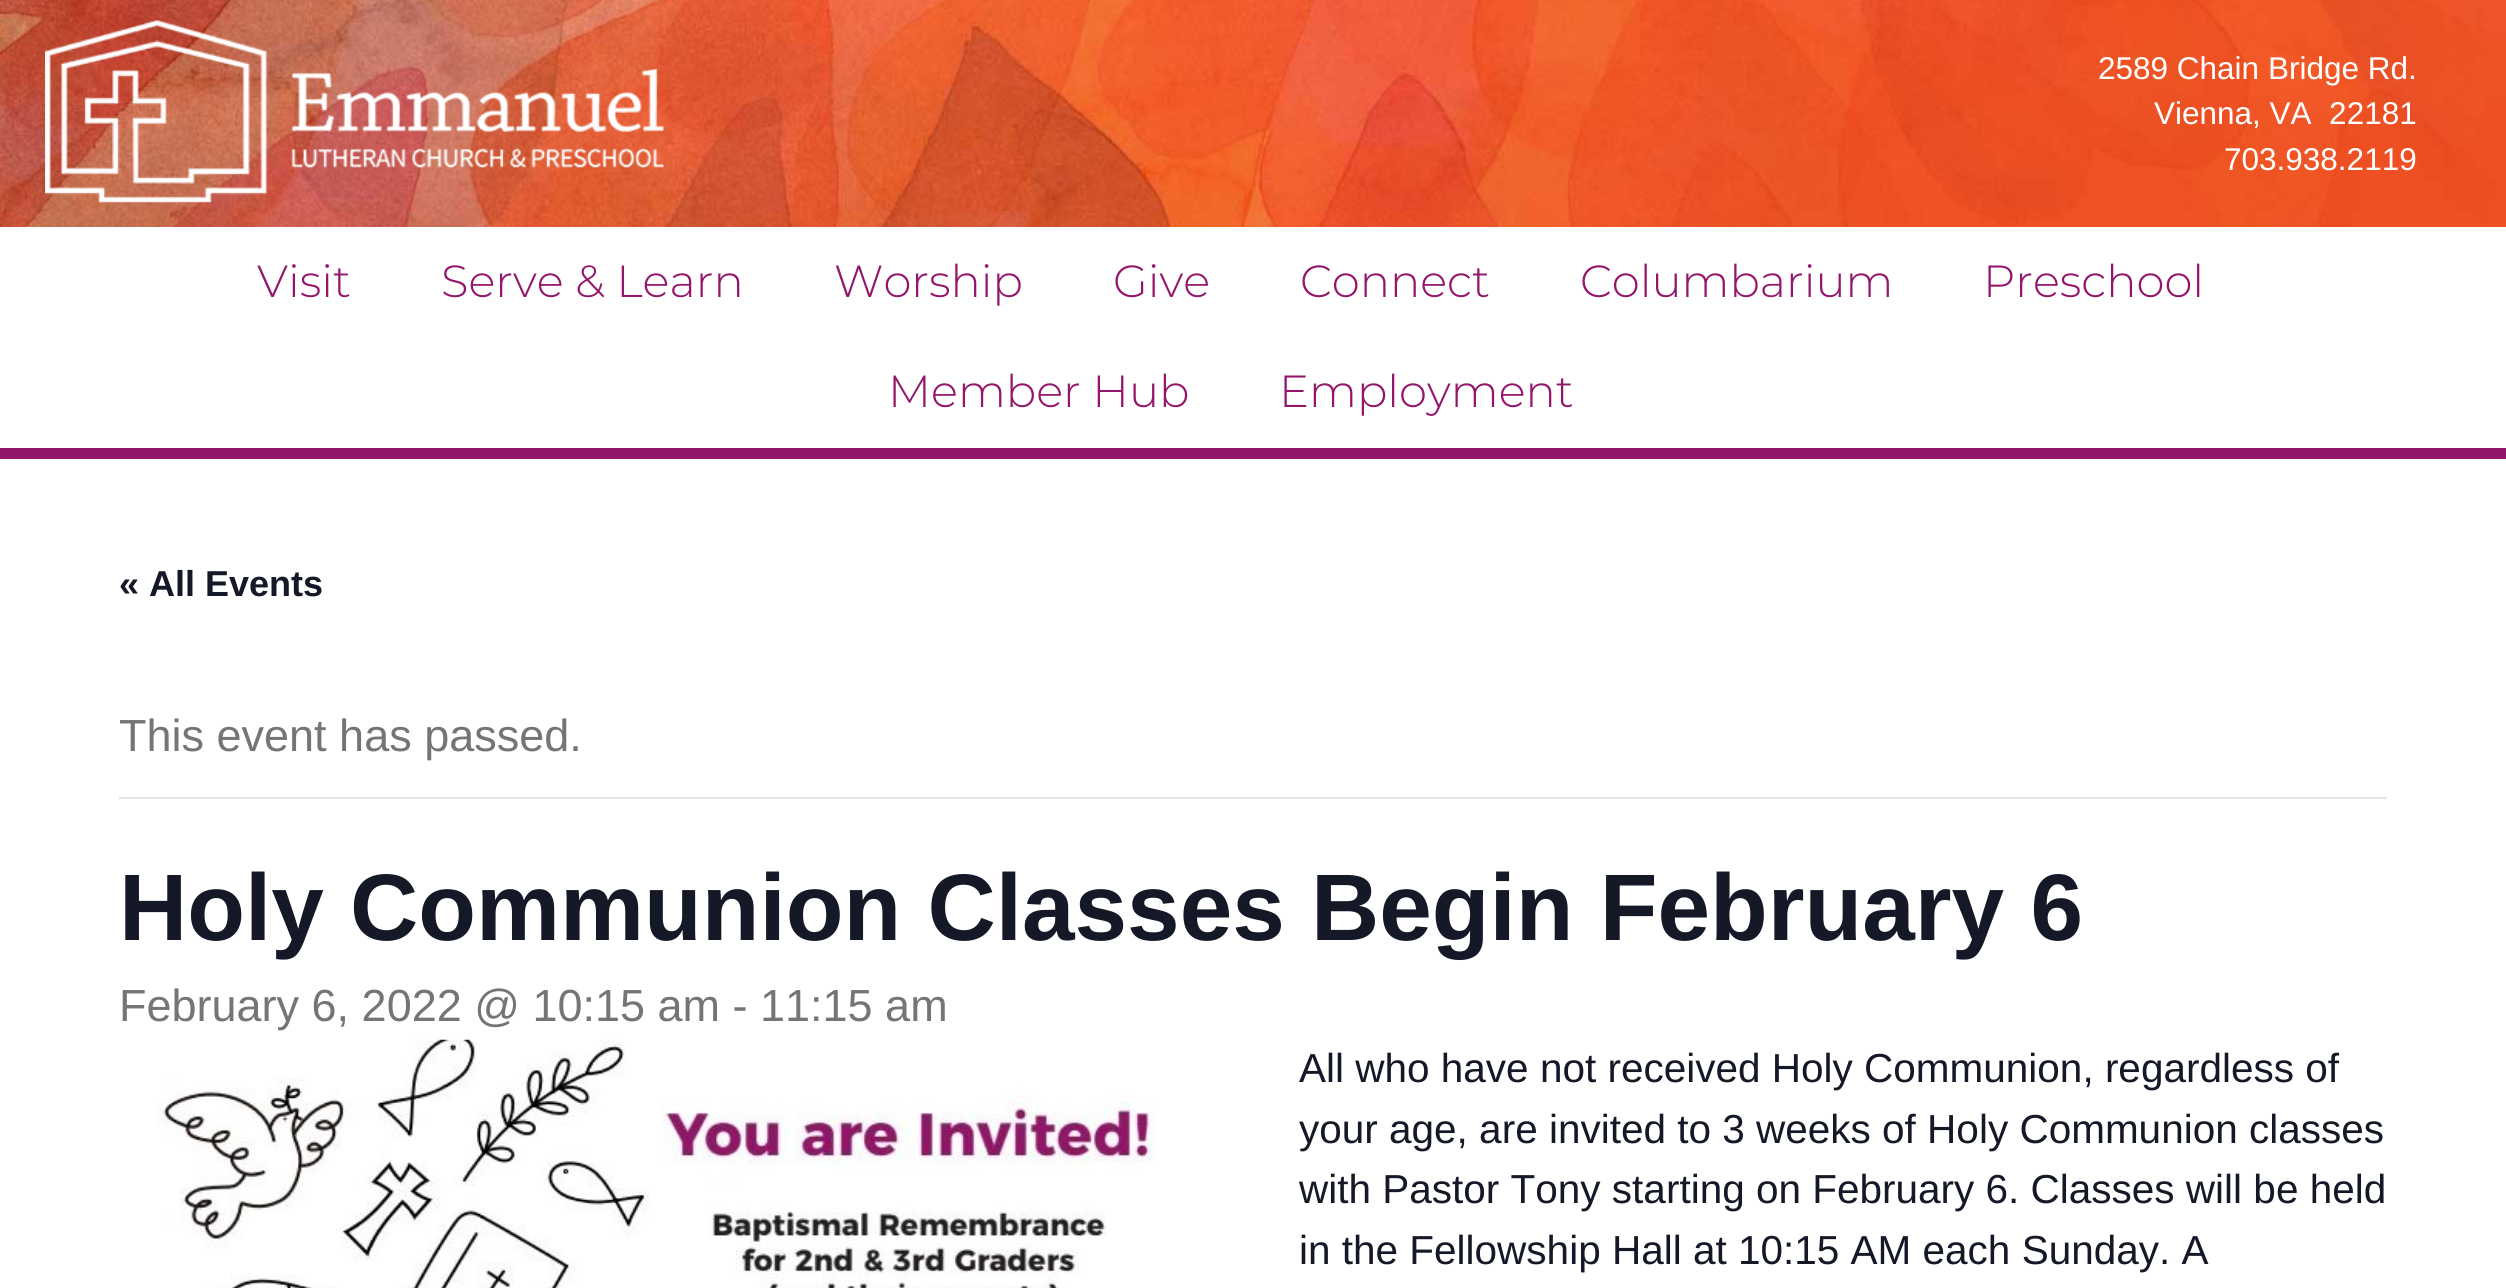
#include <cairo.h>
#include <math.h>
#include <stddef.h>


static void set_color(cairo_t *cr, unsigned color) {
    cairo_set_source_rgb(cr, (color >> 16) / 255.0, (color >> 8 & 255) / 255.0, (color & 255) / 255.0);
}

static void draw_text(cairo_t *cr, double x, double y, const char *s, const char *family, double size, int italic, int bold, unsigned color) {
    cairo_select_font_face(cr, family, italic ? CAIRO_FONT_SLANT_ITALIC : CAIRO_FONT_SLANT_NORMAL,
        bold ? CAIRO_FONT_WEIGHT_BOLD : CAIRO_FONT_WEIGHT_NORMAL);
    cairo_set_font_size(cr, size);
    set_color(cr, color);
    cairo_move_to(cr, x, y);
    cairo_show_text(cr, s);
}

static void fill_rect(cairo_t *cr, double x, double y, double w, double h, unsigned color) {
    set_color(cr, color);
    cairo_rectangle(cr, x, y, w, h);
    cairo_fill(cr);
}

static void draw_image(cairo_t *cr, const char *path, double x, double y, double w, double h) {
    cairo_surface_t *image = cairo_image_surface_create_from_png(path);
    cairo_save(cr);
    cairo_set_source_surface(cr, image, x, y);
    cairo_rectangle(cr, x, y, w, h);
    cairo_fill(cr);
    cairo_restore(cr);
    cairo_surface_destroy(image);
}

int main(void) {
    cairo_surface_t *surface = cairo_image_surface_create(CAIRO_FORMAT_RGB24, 2506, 1288);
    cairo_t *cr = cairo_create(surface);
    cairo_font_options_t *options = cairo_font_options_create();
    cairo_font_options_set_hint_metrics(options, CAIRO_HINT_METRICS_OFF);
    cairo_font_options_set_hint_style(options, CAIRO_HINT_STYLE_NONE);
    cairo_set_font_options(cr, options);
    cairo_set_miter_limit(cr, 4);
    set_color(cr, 0xFFFFFF);
    cairo_paint(cr);
    draw_image(cr, "assets/img1.png", 0, 0, 2506, 227);
    draw_image(cr, "assets/img2.png", 45, 20, 619, 183);
    draw_text(cr, 2098, 79, "2589 Chain Bridge Rd.", "Liberation Sans", 31.5, 0, 0, 0xFFFFFF);
    draw_text(cr, 2154, 124, "Vienna, VA  22181", "Liberation Sans", 31.5, 0, 0, 0xFFFFFF);
    draw_text(cr, 2224, 170, "703.938.2119", "Liberation Sans", 31.5, 0, 0, 0xFFFFFF);
    fill_rect(cr, 0, 448, 2506, 11, 0x93166A);
    draw_text(cr, 257, 297, "Visit", "Montserrat Light", 45, 0, 0, 0x93166A);
    draw_text(cr, 441, 297, "Serve & Learn", "Montserrat Light", 45, 0, 0, 0x93166A);
    draw_text(cr, 834, 297, "Worship", "Montserrat Light", 45, 0, 0, 0x93166A);
    draw_text(cr, 1113, 297, "Give", "Montserrat Light", 45, 0, 0, 0x93166A);
    draw_text(cr, 1300, 297, "Connect", "Montserrat Light", 45, 0, 0, 0x93166A);
    draw_text(cr, 1580, 297, "Columbarium", "Montserrat Light", 45, 0, 0, 0x93166A);
    draw_text(cr, 1983, 297, "Preschool", "Montserrat Light", 45, 0, 0, 0x93166A);
    draw_text(cr, 888, 407, "Member Hub", "Montserrat Light", 45, 0, 0, 0x93166A);
    draw_text(cr, 1279, 407, "Employment", "Montserrat Light", 45, 0, 0, 0x93166A);
    draw_text(cr, 119, 596, "« All Events", "Liberation Sans", 36, 0, 1, 0x141827);
    fill_rect(cr, 119, 797, 2268, 2, 0xE4E4E4);
    draw_text(cr, 119, 751, "This event has passed.", "Liberation Sans", 45, 0, 0, 0x757575);
    draw_text(cr, 119, 940, "Holy Communion Classes Begin February 6", "Liberation Sans", 94.5, 0, 1, 0x141827);
    draw_text(cr, 119, 1021, "February 6, 2022 @ 10:15 am - 11:15 am", "Liberation Sans", 45, 0, 0, 0x757575);
    draw_image(cr, "assets/img3.png", 156, 1039, 1000, 249);
    draw_text(cr, 1299, 1082, "All who have not received Holy Communion, regardless of", "Liberation Sans", 40.5, 0, 0, 0x141827);
    draw_text(cr, 1299, 1143, "your age, are invited to 3 weeks of Holy Communion classes", "Liberation Sans", 40.5, 0, 0, 0x141827);
    draw_text(cr, 1299, 1203, "with Pastor Tony starting on February 6. Classes will be held", "Liberation Sans", 40.5, 0, 0, 0x141827);
    draw_text(cr, 1299, 1264, "in the Fellowship Hall at 10:15 AM each Sunday. A", "Liberation Sans", 40.5, 0, 0, 0x141827);
    cairo_surface_write_to_png(surface, "output.png");
    cairo_font_options_destroy(options);
    cairo_destroy(cr);
    cairo_surface_destroy(surface);
    return 0;
}
